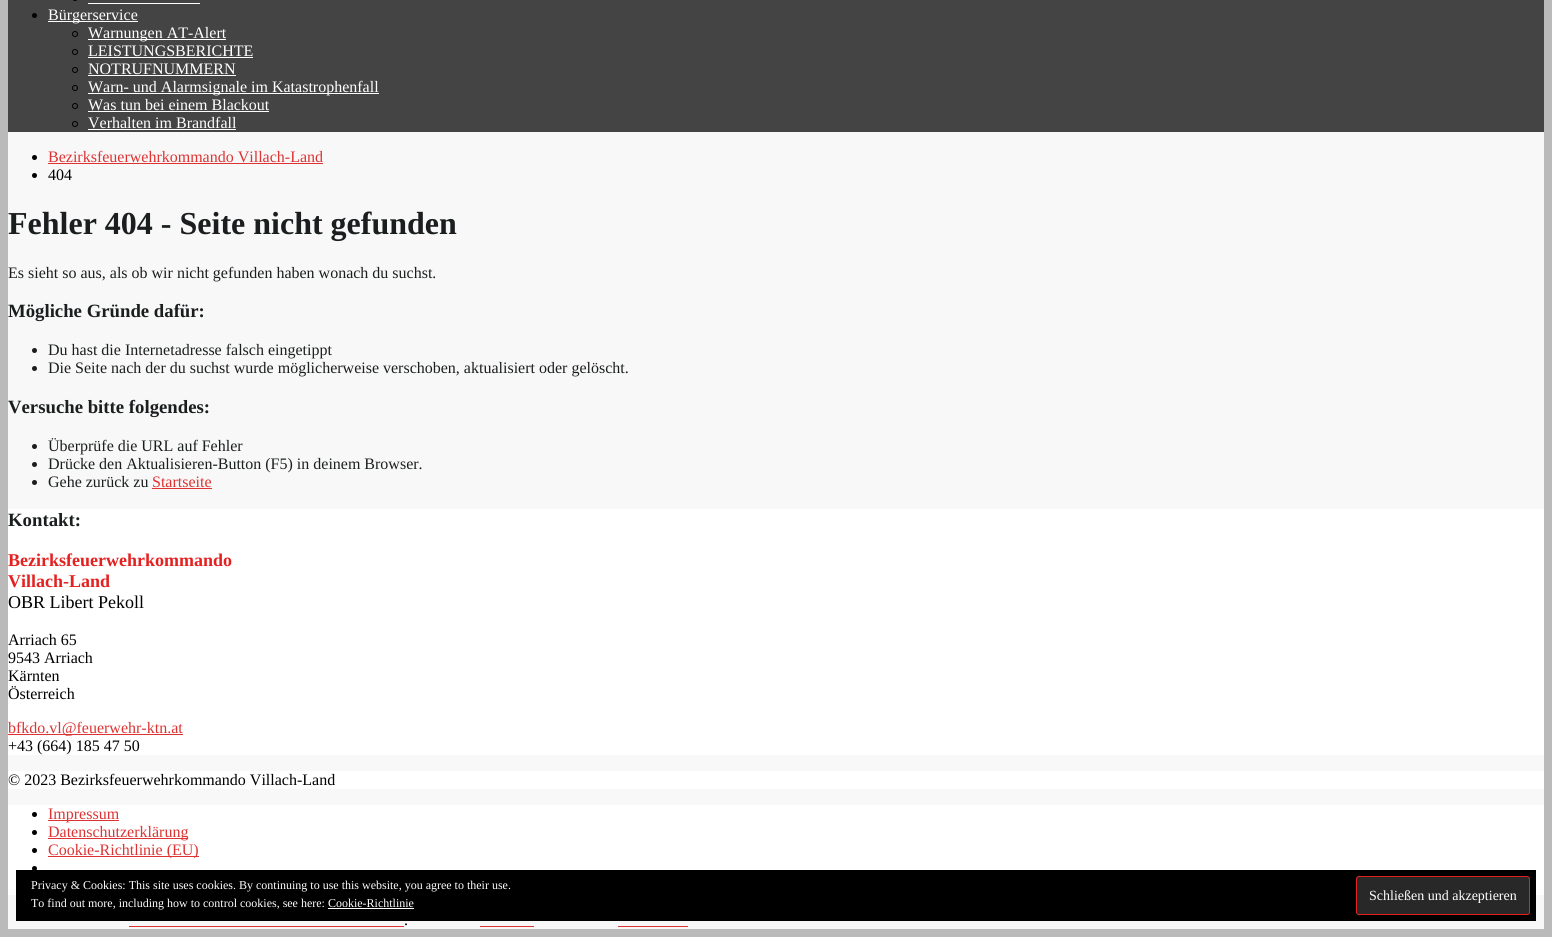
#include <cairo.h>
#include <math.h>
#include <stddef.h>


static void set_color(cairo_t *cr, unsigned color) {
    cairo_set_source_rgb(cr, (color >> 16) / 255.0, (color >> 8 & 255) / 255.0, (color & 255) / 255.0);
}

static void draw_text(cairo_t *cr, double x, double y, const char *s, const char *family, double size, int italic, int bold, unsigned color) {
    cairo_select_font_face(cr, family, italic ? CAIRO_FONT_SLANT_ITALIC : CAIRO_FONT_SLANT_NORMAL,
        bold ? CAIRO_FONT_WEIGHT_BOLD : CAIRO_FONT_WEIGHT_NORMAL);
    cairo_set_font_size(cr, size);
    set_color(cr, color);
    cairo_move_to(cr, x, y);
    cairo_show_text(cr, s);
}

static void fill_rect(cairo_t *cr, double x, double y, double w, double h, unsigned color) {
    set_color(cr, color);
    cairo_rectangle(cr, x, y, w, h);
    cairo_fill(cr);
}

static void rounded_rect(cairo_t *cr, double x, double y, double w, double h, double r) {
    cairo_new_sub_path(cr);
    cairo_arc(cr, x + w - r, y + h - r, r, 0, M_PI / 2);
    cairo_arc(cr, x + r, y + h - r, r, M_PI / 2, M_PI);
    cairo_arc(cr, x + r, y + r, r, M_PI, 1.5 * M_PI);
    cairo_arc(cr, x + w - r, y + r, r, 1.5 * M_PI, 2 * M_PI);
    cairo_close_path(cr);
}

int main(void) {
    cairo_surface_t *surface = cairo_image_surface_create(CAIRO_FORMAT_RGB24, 1552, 937);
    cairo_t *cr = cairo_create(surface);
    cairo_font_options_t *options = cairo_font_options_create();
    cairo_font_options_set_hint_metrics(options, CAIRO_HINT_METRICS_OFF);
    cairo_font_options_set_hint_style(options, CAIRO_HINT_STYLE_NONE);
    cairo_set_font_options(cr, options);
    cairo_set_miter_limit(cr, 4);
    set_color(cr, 0xBABABA);
    cairo_paint(cr);
    fill_rect(cr, 8, 132, 1536, 797, 0xF8F8F8);
    fill_rect(cr, 8, 0, 1536, 132, 0x444444);
    rounded_rect(cr, 72.5, -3.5, 5, 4, 2.5);
    set_color(cr, 0x000000);
    cairo_set_line_width(cr, 1);
    cairo_stroke(cr);
    fill_rect(cr, 88, 3, 112, 1, 0xFFFFFF);
    set_color(cr, 0x000000);
    cairo_arc(cr, 34.5, 15.5, 2.5, 0, 2 * M_PI);
    cairo_fill(cr);
    fill_rect(cr, 48, 21, 90, 1, 0xFFFFFF);
    draw_text(cr, 48, 20, "Bürgerservice", "Liberation Serif", 16, 0, 0, 0xFFFFFF);
    cairo_new_path(cr);
    cairo_arc(cr, 75, 34, 2.5, 0, 2 * M_PI);
    set_color(cr, 0x000000);
    cairo_stroke(cr);
    fill_rect(cr, 88, 39, 138, 1, 0xFFFFFF);
    draw_text(cr, 88, 38, "Warnungen AT-Alert", "Liberation Serif", 16, 0, 0, 0xFFFFFF);
    cairo_new_path(cr);
    cairo_arc(cr, 75, 52, 2.5, 0, 2 * M_PI);
    set_color(cr, 0x000000);
    cairo_stroke(cr);
    draw_text(cr, 88, 56, "LEISTUNGSBERICHTE", "Liberation Serif", 16, 0, 0, 0xFFFFFF);
    fill_rect(cr, 88, 57, 165, 1, 0xFFFFFF);
    cairo_new_path(cr);
    cairo_arc(cr, 75, 70, 2.5, 0, 2 * M_PI);
    set_color(cr, 0x000000);
    cairo_stroke(cr);
    draw_text(cr, 88, 74, "NOTRUFNUMMERN", "Liberation Serif", 16, 0, 0, 0xFFFFFF);
    fill_rect(cr, 88, 75, 148, 1, 0xFFFFFF);
    cairo_new_path(cr);
    cairo_arc(cr, 75, 88, 2.5, 0, 2 * M_PI);
    set_color(cr, 0x000000);
    cairo_stroke(cr);
    fill_rect(cr, 88, 93, 291, 1, 0xFFFFFF);
    draw_text(cr, 88, 92, "Warn- und Alarmsignale im Katastrophenfall", "Liberation Serif", 16, 0, 0, 0xFFFFFF);
    cairo_new_path(cr);
    cairo_arc(cr, 75, 106, 2.5, 0, 2 * M_PI);
    set_color(cr, 0x000000);
    cairo_stroke(cr);
    draw_text(cr, 88, 110, "Was tun bei einem Blackout", "Liberation Serif", 16, 0, 0, 0xFFFFFF);
    fill_rect(cr, 88, 111, 181, 1, 0xFFFFFF);
    cairo_new_path(cr);
    cairo_arc(cr, 75, 124, 2.5, 0, 2 * M_PI);
    set_color(cr, 0x000000);
    cairo_stroke(cr);
    draw_text(cr, 88, 128, "Verhalten im Brandfall", "Liberation Serif", 16, 0, 0, 0xFFFFFF);
    fill_rect(cr, 88, 129, 148, 1, 0xFFFFFF);
    set_color(cr, 0x000000);
    cairo_new_path(cr);
    cairo_arc(cr, 34.5, 157.5, 2.5, 0, 2 * M_PI);
    cairo_fill(cr);
    draw_text(cr, 48, 162, "Bezirksfeuerwehrkommando Villach-Land", "Liberation Serif", 16, 0, 0, 0xDD3333);
    fill_rect(cr, 48, 163, 275, 1, 0xDD3333);
    set_color(cr, 0x000000);
    cairo_new_path(cr);
    cairo_arc(cr, 34.5, 175.5, 2.5, 0, 2 * M_PI);
    cairo_fill(cr);
    draw_text(cr, 48, 180, "404", "Liberation Serif", 16, 0, 0, 0x000000);
    draw_text(cr, 8, 234, "Fehler 404 - Seite nicht gefunden", "Liberation Serif", 32, 0, 1, 0x1B1E1F);
    draw_text(cr, 8, 278, "Es sieht so aus, als ob wir nicht gefunden haben wonach du suchst.", "Liberation Serif", 16, 0, 0, 0x1B1E1F);
    draw_text(cr, 8, 317, "Mögliche Gründe dafür:", "Liberation Serif", 18.75, 0, 1, 0x1B1E1F);
    set_color(cr, 0x1D1D1D);
    cairo_new_path(cr);
    cairo_arc(cr, 34.5, 350.5, 2.5, 0, 2 * M_PI);
    cairo_fill(cr);
    draw_text(cr, 48, 355, "Du hast die Internetadresse falsch eingetippt", "Liberation Serif", 16, 0, 0, 0x1B1E1F);
    set_color(cr, 0x1D1D1D);
    cairo_new_path(cr);
    cairo_arc(cr, 34.5, 368.5, 2.5, 0, 2 * M_PI);
    cairo_fill(cr);
    draw_text(cr, 48, 373, "Die Seite nach der du suchst wurde möglicherweise verschoben, aktualisiert oder gelöscht.", "Liberation Serif", 16, 0, 0, 0x1B1E1F);
    draw_text(cr, 8, 413, "Versuche bitte folgendes:", "Liberation Serif", 18.75, 0, 1, 0x1B1E1F);
    set_color(cr, 0x1D1D1D);
    cairo_new_path(cr);
    cairo_arc(cr, 34.5, 446.5, 2.5, 0, 2 * M_PI);
    cairo_fill(cr);
    draw_text(cr, 48, 451, "Überprüfe die URL auf Fehler", "Liberation Serif", 16, 0, 0, 0x1B1E1F);
    set_color(cr, 0x1D1D1D);
    cairo_new_path(cr);
    cairo_arc(cr, 34.5, 464.5, 2.5, 0, 2 * M_PI);
    cairo_fill(cr);
    draw_text(cr, 48, 469, "Drücke den Aktualisieren-Button (F5) in deinem Browser.", "Liberation Serif", 16, 0, 0, 0x1B1E1F);
    set_color(cr, 0x1D1D1D);
    cairo_new_path(cr);
    cairo_arc(cr, 34.5, 482.5, 2.5, 0, 2 * M_PI);
    cairo_fill(cr);
    draw_text(cr, 48, 487, "Gehe zurück zu", "Liberation Serif", 16, 0, 0, 0x1B1E1F);
    draw_text(cr, 152, 487, "Startseite", "Liberation Serif", 16, 0, 0, 0xDD3333);
    fill_rect(cr, 152, 488, 60, 1, 0xDD3333);
    fill_rect(cr, 8, 509, 1536, 246, 0xFFFFFF);
    draw_text(cr, 8, 526, "Kontakt:", "Liberation Serif", 18.75, 0, 1, 0x1B1E1F);
    draw_text(cr, 8, 566, "Bezirksfeuerwehrkommando", "Liberation Serif", 18, 0, 1, 0xE42121);
    draw_text(cr, 8, 587, "Villach-Land", "Liberation Serif", 18, 0, 1, 0xE42121);
    draw_text(cr, 8, 608, "OBR Libert Pekoll", "Liberation Serif", 18, 0, 0, 0x000000);
    draw_text(cr, 8, 645, "Arriach 65", "Liberation Serif", 16, 0, 0, 0x000000);
    draw_text(cr, 8, 663, "9543 Arriach", "Liberation Serif", 16, 0, 0, 0x000000);
    draw_text(cr, 8, 681, "Kärnten", "Liberation Serif", 16, 0, 0, 0x000000);
    draw_text(cr, 8, 699, "Österreich", "Liberation Serif", 16, 0, 0, 0x000000);
    fill_rect(cr, 8, 734, 175, 1, 0xDD3333);
    draw_text(cr, 8, 733, "bfkdo.vl@feuerwehr-ktn.at", "Liberation Serif", 16, 0, 0, 0xDD3333);
    draw_text(cr, 8, 751, "+43 (664) 185 47 50", "Liberation Serif", 16, 0, 0, 0x000000);
    fill_rect(cr, 8, 771, 1536, 18, 0xFFFFFF);
    draw_text(cr, 8, 785, "© 2023 Bezirksfeuerwehrkommando Villach-Land", "Liberation Serif", 16, 0, 0, 0x000000);
    fill_rect(cr, 8, 805, 1536, 90, 0xFFFFFF);
    set_color(cr, 0x000000);
    cairo_new_path(cr);
    cairo_arc(cr, 34.5, 814.5, 2.5, 0, 2 * M_PI);
    cairo_fill(cr);
    fill_rect(cr, 48, 820, 71, 1, 0xDD3333);
    draw_text(cr, 48, 819, "Impressum", "Liberation Serif", 16, 0, 0, 0xDD3333);
    set_color(cr, 0x000000);
    cairo_new_path(cr);
    cairo_arc(cr, 34.5, 832.5, 2.5, 0, 2 * M_PI);
    cairo_fill(cr);
    fill_rect(cr, 48, 838, 140, 1, 0xDD3333);
    draw_text(cr, 48, 837, "Datenschutzerklärung", "Liberation Serif", 16, 0, 0, 0xDD3333);
    set_color(cr, 0x000000);
    cairo_new_path(cr);
    cairo_arc(cr, 34.5, 850.5, 2.5, 0, 2 * M_PI);
    cairo_fill(cr);
    fill_rect(cr, 48, 856, 151, 1, 0xDD3333);
    draw_text(cr, 48, 855, "Cookie-Richtlinie (EU)", "Liberation Serif", 16, 0, 0, 0xDD3333);
    set_color(cr, 0x000000);
    cairo_new_path(cr);
    cairo_arc(cr, 34.5, 868.5, 2.5, 0, 2 * M_PI);
    cairo_fill(cr);
    draw_text(cr, 404, 925, ".", "Liberation Serif", 16, 0, 0, 0x000000);
    fill_rect(cr, 129, 926, 275, 1, 0xDD3333);
    fill_rect(cr, 480, 926, 54, 1, 0xDD3333);
    fill_rect(cr, 618, 926, 70, 1, 0xDD3333);
    fill_rect(cr, 16, 870, 1520, 51, 0x000000);
    draw_text(cr, 31, 889, "Privacy & Cookies: This site uses cookies. By continuing to use this website, you agree to their use.", "Liberation Serif", 12, 0, 0, 0xFFFFFF);
    draw_text(cr, 31, 907, "To find out more, including how to control cookies, see here: Cookie-Richtlinie", "Liberation Serif", 12, 0, 0, 0xFFFFFF);
    set_color(cr, 0x282828);
    rounded_rect(cr, 1356.5, 876.5, 173, 38, 2.5);
    cairo_fill_preserve(cr);
    set_color(cr, 0xE42121);
    cairo_stroke(cr);
    draw_text(cr, 1369, 900, "Schließen und akzeptieren", "Liberation Serif", 14, 0, 0, 0xFFFFFF);
    fill_rect(cr, 328, 908, 86, 1, 0xFFFFFF);
    cairo_surface_write_to_png(surface, "output.png");
    cairo_font_options_destroy(options);
    cairo_destroy(cr);
    cairo_surface_destroy(surface);
    return 0;
}
